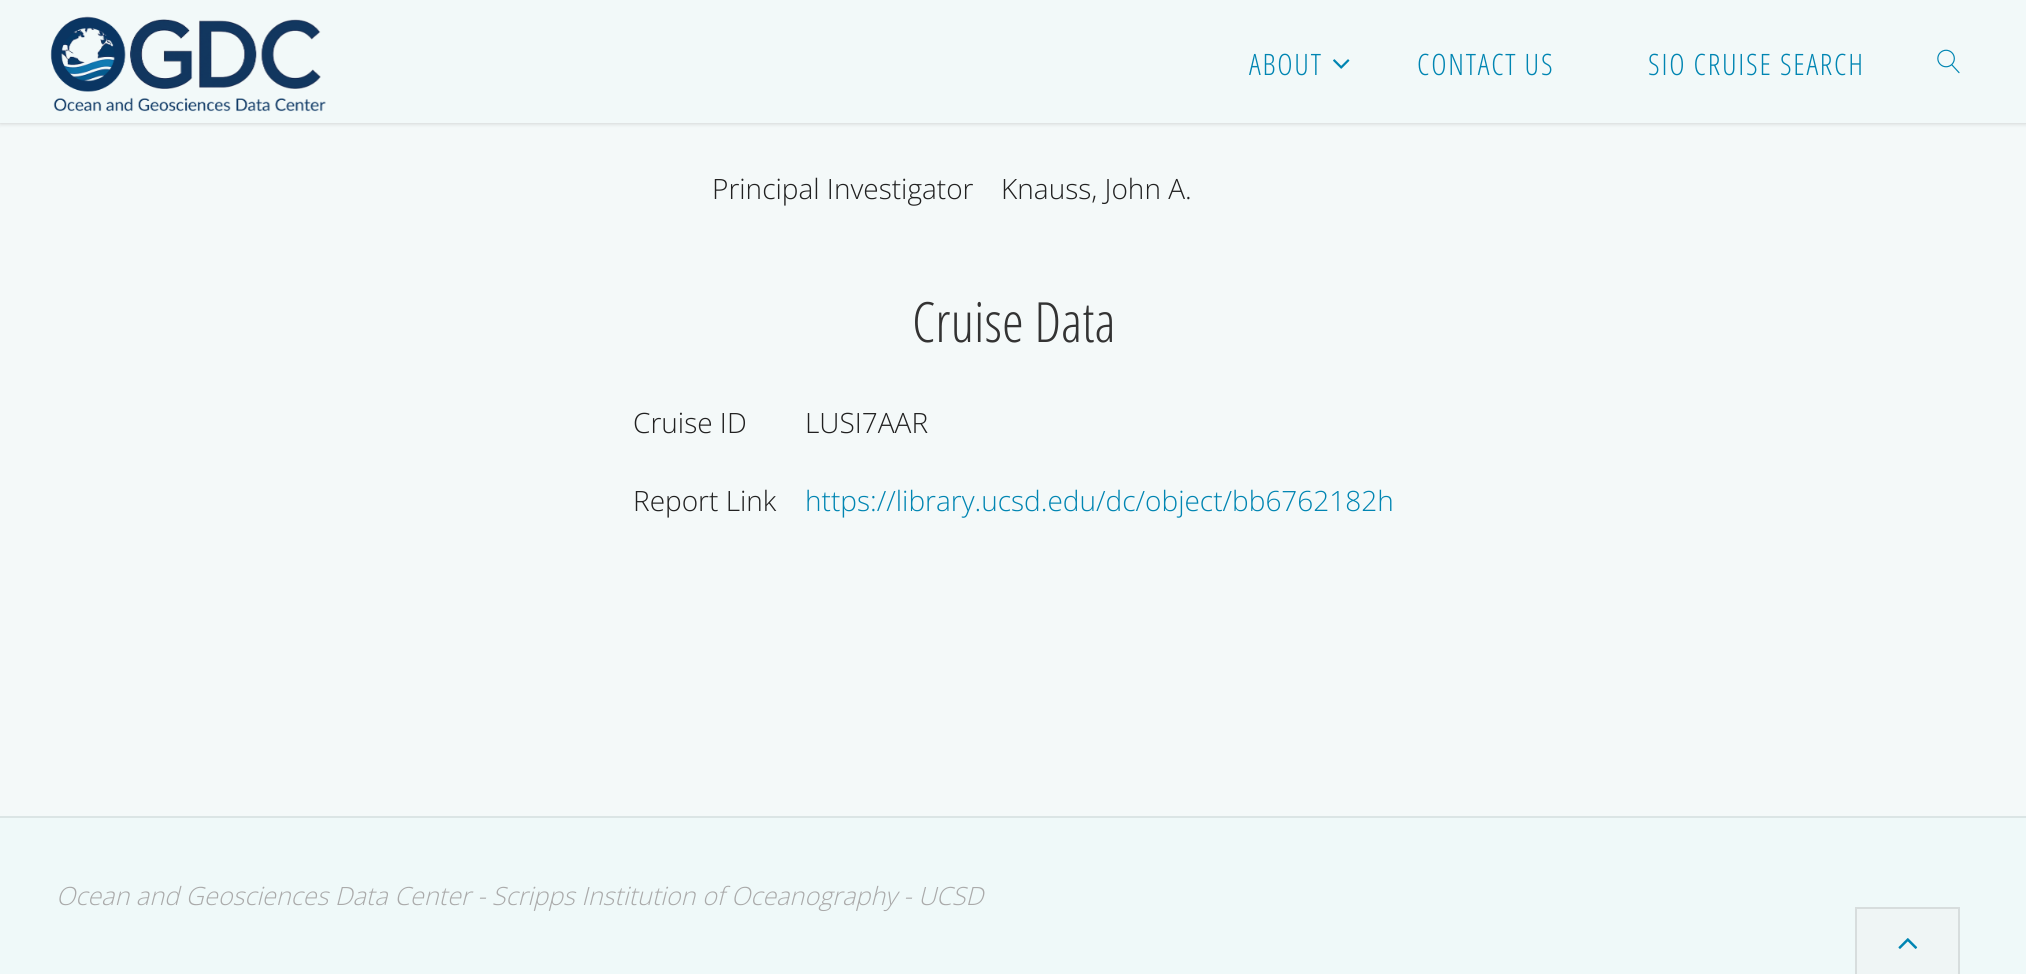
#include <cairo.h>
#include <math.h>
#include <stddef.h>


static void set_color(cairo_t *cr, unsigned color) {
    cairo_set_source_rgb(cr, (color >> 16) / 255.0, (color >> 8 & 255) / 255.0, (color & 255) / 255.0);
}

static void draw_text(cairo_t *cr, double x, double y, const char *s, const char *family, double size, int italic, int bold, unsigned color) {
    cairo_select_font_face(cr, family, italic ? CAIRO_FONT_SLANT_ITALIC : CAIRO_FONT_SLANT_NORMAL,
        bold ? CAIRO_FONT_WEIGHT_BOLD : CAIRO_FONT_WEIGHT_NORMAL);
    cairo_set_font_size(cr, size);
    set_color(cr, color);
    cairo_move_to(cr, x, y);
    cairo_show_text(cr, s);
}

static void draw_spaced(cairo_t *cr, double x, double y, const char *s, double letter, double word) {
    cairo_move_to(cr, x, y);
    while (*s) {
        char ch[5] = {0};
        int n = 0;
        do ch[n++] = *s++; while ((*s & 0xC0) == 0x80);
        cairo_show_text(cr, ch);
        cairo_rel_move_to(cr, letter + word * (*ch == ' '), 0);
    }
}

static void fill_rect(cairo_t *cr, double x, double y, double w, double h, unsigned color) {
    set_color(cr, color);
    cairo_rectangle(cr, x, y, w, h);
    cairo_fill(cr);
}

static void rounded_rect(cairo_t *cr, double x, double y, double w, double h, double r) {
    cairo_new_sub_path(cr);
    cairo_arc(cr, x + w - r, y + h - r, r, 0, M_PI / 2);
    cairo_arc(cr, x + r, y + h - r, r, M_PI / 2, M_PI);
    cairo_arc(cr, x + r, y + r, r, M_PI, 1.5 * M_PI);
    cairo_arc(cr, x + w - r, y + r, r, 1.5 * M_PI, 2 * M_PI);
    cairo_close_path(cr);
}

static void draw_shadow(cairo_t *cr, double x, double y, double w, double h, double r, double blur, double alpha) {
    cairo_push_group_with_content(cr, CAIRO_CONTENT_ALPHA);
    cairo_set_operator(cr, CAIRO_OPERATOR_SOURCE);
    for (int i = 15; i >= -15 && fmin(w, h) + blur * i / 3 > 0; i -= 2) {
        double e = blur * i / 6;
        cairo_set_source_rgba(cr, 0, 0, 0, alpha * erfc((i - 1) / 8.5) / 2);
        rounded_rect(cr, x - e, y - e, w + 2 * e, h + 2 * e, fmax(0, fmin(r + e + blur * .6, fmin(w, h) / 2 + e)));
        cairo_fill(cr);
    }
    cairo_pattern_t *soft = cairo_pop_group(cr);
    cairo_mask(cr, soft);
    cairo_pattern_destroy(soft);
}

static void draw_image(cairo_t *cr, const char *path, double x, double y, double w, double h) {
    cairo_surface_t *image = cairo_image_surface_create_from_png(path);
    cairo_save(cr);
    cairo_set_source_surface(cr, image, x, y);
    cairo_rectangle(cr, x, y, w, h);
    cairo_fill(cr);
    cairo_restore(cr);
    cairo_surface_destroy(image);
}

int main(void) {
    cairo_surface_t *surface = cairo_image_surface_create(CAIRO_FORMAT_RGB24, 2026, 974);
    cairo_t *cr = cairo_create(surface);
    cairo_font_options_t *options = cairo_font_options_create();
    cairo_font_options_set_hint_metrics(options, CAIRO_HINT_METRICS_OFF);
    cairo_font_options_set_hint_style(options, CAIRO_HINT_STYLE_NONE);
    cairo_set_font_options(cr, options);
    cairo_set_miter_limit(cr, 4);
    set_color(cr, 0xF4F9F9);
    cairo_paint(cr);
    set_color(cr, 0x000000);
    draw_shadow(cr, 0, 0, 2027, 123, 0, 2.5, 0.2);
    fill_rect(cr, 0, 0, 2026, 123, 0xF2F9F9);
    draw_image(cr, "assets/img1.png", 50, 16, 276, 96);
    cairo_select_font_face(cr, "Open Sans Condensed Light", CAIRO_FONT_SLANT_NORMAL, CAIRO_FONT_WEIGHT_NORMAL);
    cairo_set_font_size(cr, 29.5);
    set_color(cr, 0x0085B2);
    draw_spaced(cr, 1249, 75, "ABOUT", 1.75, 0);
    draw_image(cr, "assets/img2.png", 1333, 59, 17, 10);
    draw_spaced(cr, 1417, 75, "CONTACT US", 1.75, 0);
    draw_spaced(cr, 1648, 75, "SIO CRUISE SEARCH", 1.75, 0);
    draw_image(cr, "assets/img3.png", 1937, 49, 23, 25);
    draw_text(cr, 712, 199, "Principal Investigator", "Open Sans Light", 28, 0, 0, 0x212121);
    draw_text(cr, 1001, 199, "Knauss, John A.", "Open Sans Light", 28, 0, 0, 0x212121);
    draw_text(cr, 912, 342, "Cruise Data", "Open Sans Condensed Light", 55.5, 0, 0, 0x333333);
    draw_text(cr, 633, 433, "Cruise ID", "Open Sans Light", 28, 0, 0, 0x212121);
    draw_text(cr, 805, 433, "LUSI7AAR", "Open Sans Light", 28, 0, 0, 0x212121);
    draw_text(cr, 633, 511, "Report Link", "Open Sans Light", 28, 0, 0, 0x212121);
    draw_text(cr, 805, 511, "https://library.ucsd.edu/dc/object/bb6762182h", "Open Sans Light", 28, 0, 0, 0x0085B2);
    fill_rect(cr, 0, 818, 2026, 156, 0xEFF9F9);
    fill_rect(cr, 0, 816, 2026, 2, 0xDBE5E5);
    draw_text(cr, 56, 905, "Ocean and Geosciences Data Center - Scripps Institution of Oceanography - UCSD", "Open Sans Light", 25.2, 1, 0, 0xAAAAAA);
    set_color(cr, 0xEFF5F5);
    cairo_rectangle(cr, 1856, 908, 103, 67);
    cairo_fill_preserve(cr);
    set_color(cr, 0xD7DDDD);
    cairo_stroke(cr);
    draw_image(cr, "assets/img4.png", 1898, 938, 20, 11);
    cairo_surface_write_to_png(surface, "output.png");
    cairo_font_options_destroy(options);
    cairo_destroy(cr);
    cairo_surface_destroy(surface);
    return 0;
}
